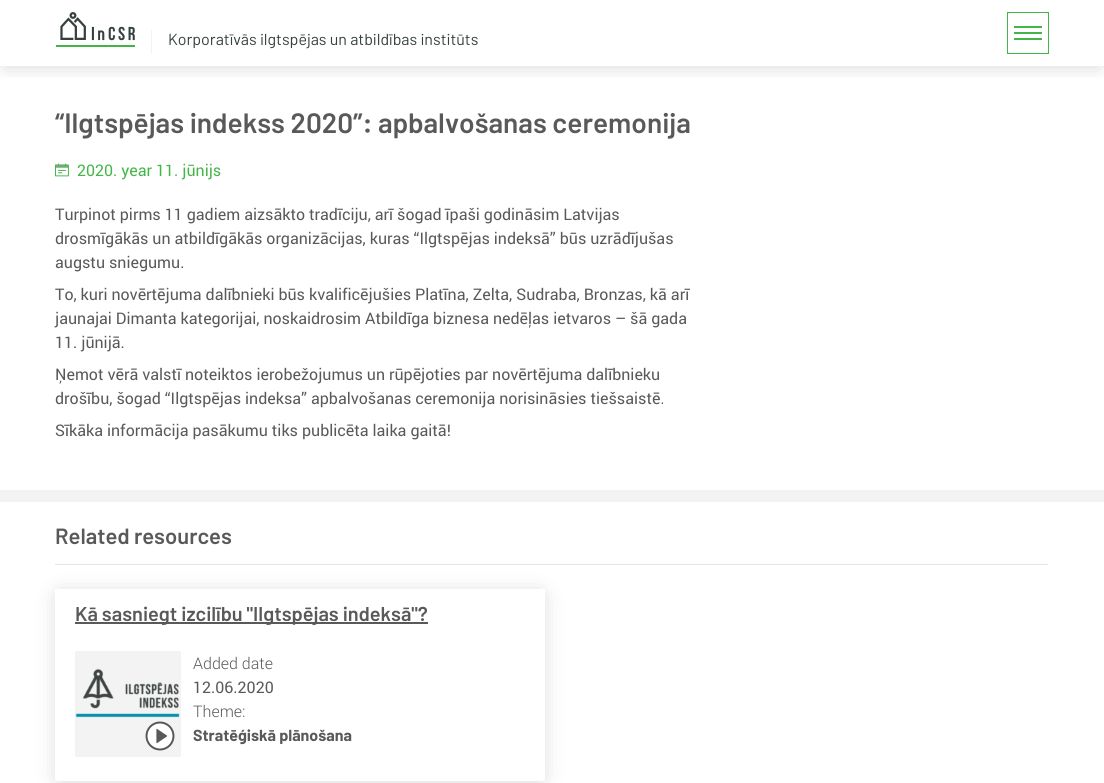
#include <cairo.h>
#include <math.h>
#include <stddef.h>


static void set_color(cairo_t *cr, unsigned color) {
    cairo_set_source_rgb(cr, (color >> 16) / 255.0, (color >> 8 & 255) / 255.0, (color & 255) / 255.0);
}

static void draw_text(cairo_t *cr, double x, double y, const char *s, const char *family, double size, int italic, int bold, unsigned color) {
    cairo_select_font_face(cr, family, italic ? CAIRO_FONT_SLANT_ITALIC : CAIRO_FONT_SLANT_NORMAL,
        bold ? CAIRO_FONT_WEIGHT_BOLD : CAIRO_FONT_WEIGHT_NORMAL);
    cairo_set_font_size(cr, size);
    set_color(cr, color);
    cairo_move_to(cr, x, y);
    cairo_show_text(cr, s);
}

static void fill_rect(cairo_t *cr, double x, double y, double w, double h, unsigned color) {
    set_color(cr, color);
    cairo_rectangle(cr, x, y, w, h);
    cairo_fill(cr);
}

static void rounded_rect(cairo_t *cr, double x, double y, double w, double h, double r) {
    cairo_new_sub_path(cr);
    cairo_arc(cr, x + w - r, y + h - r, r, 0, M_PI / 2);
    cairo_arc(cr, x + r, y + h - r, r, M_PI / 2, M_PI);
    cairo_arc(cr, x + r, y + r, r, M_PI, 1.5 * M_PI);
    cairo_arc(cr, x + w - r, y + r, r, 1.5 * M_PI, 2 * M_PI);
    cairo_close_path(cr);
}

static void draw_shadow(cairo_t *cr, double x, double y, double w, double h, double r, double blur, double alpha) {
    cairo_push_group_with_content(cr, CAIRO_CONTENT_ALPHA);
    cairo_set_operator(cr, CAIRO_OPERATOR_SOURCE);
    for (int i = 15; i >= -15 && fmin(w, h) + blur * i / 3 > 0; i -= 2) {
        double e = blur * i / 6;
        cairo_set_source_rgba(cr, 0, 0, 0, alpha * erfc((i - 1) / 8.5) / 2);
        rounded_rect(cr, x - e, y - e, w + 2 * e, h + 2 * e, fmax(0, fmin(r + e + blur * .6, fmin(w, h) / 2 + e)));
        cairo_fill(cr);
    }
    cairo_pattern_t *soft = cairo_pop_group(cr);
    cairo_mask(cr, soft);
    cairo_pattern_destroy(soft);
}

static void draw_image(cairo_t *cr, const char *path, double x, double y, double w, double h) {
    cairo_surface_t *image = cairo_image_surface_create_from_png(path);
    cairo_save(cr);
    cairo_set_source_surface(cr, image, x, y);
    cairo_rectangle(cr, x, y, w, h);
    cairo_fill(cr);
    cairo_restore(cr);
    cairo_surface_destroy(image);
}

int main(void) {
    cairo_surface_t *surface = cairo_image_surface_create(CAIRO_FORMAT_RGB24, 1104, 783);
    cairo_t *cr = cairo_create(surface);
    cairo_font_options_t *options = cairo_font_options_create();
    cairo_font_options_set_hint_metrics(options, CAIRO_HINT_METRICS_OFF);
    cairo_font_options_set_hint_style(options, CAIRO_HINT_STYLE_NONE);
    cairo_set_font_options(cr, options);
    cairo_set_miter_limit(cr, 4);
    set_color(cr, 0xFFFFFF);
    cairo_paint(cr);
    cairo_save(cr);
    cairo_rectangle(cr, 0, 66, 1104, 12);
    cairo_clip(cr);
    set_color(cr, 0x000000);
    draw_shadow(cr, 5, 7, 1094, 56, 0, 11.5, 0.21);
    cairo_restore(cr);
    draw_image(cr, "assets/img1.png", 56, 12, 79, 35);
    cairo_rectangle(cr, 1007.5, 12.5, 41, 41);
    set_color(cr, 0x43B649);
    cairo_set_line_width(cr, 1);
    cairo_stroke(cr);
    fill_rect(cr, 1014, 32, 28, 2, 0x43B649);
    fill_rect(cr, 1014, 26, 28, 2, 0x43B649);
    fill_rect(cr, 1014, 38, 28, 2, 0x43B649);
    fill_rect(cr, 151, 30, 1, 24, 0xF3F3F3);
    draw_text(cr, 168, 45, "Korporatīvās ilgtspējas un atbildības institūts", "Barlow", 16, 0, 0, 0x35403F);
    rounded_rect(cr, 1007.5, 12.5, 41, 41, 1.5);
    set_color(cr, 0x43B649);
    cairo_stroke(cr);
    draw_text(cr, 55, 133, "“Ilgtspējas indekss 2020”: apbalvošanas ceremonija", "Barlow SemiBold", 28, 0, 0, 0x595959);
    draw_image(cr, "assets/img2.png", 55, 163, 14, 14);
    draw_text(cr, 77, 176, "2020. year 11. jūnijs", "Roboto", 16, 0, 0, 0x43B649);
    draw_text(cr, 55, 220, "Turpinot pirms 11 gadiem aizsākto tradīciju, arī šogad īpaši godināsim Latvijas", "Roboto", 16, 0, 0, 0x595959);
    draw_text(cr, 55, 244, "drosmīgākās un atbildīgākās organizācijas, kuras “Ilgtspējas indeksā” būs uzrādījušas", "Roboto", 16, 0, 0, 0x595959);
    draw_text(cr, 55, 268, "augstu sniegumu.", "Roboto", 16, 0, 0, 0x595959);
    draw_text(cr, 55, 300, "To, kuri novērtējuma dalībnieki būs kvalificējušies Platīna, Zelta, Sudraba, Bronzas, kā arī", "Roboto", 16, 0, 0, 0x595959);
    draw_text(cr, 55, 324, "jaunajai Dimanta kategorijai, noskaidrosim Atbildīga biznesa nedēļas ietvaros – šā gada", "Roboto", 16, 0, 0, 0x595959);
    draw_text(cr, 55, 348, "11. jūnijā.", "Roboto", 16, 0, 0, 0x595959);
    draw_text(cr, 55, 380, "Ņemot vērā valstī noteiktos ierobežojumus un rūpējoties par novērtējuma dalībnieku", "Roboto", 16, 0, 0, 0x595959);
    draw_text(cr, 55, 404, "drošību, šogad “Ilgtspējas indeksa” apbalvošanas ceremonija norisināsies tiešsaistē.", "Roboto", 16, 0, 0, 0x595959);
    draw_text(cr, 55, 436, "Sīkāka informācija pasākumu tiks publicēta laika gaitā!", "Roboto", 16, 0, 0, 0x595959);
    fill_rect(cr, 0, 490, 1104, 12, 0xF3F3F3);
    draw_text(cr, 55, 544, "Related resources", "Barlow SemiBold", 22, 0, 0, 0x595959);
    fill_rect(cr, 55, 564, 993, 1, 0xE5E5E5);
    cairo_save(cr);
    cairo_set_fill_rule(cr, CAIRO_FILL_RULE_EVEN_ODD);
    cairo_new_path(cr);
    cairo_move_to(cr, 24, 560);
    cairo_line_to(cr, 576, 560);
    cairo_line_to(cr, 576, 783);
    cairo_line_to(cr, 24, 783);
    cairo_close_path(cr);
    cairo_move_to(cr, 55, 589);
    cairo_line_to(cr, 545, 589);
    cairo_line_to(cr, 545, 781);
    cairo_line_to(cr, 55, 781);
    cairo_close_path(cr);
    cairo_clip(cr);
    set_color(cr, 0x000000);
    draw_shadow(cr, 60, 596, 480, 182, 0, 11.5, 0.21);
    cairo_restore(cr);
    fill_rect(cr, 75, 622, 353, 2, 0x595959);
    draw_text(cr, 75, 621, "Kā sasniegt izcilību \"Ilgtspējas indeksā\"?", "Barlow SemiBold", 20, 0, 0, 0x595959);
    fill_rect(cr, 75, 651, 106, 106, 0xF3F3F3);
    draw_image(cr, "assets/img3.png", 75, 668, 105, 50);
    draw_image(cr, "assets/img4.png", 145, 721, 30, 30);
    draw_text(cr, 193, 669, "Added date", "Roboto Light", 16, 0, 0, 0x595959);
    draw_text(cr, 193, 693, "12.06.2020", "Roboto", 16, 0, 0, 0x595959);
    draw_text(cr, 193, 717, "Theme:", "Roboto Light", 16, 0, 0, 0x595959);
    draw_text(cr, 193, 741, "Stratēģiskā plānošana", "Barlow", 16, 0, 1, 0x595959);
    cairo_surface_write_to_png(surface, "output.png");
    cairo_font_options_destroy(options);
    cairo_destroy(cr);
    cairo_surface_destroy(surface);
    return 0;
}
